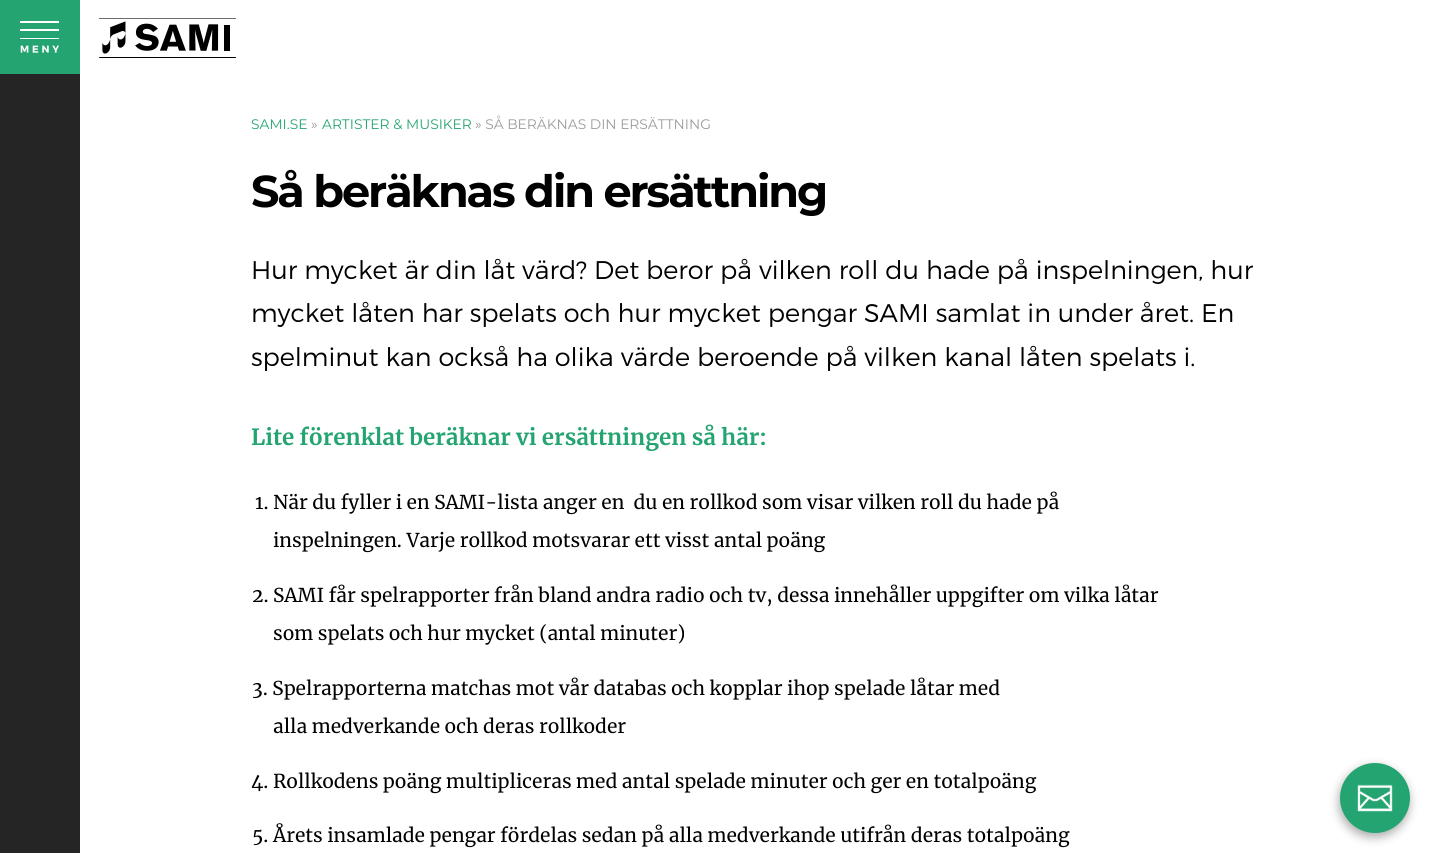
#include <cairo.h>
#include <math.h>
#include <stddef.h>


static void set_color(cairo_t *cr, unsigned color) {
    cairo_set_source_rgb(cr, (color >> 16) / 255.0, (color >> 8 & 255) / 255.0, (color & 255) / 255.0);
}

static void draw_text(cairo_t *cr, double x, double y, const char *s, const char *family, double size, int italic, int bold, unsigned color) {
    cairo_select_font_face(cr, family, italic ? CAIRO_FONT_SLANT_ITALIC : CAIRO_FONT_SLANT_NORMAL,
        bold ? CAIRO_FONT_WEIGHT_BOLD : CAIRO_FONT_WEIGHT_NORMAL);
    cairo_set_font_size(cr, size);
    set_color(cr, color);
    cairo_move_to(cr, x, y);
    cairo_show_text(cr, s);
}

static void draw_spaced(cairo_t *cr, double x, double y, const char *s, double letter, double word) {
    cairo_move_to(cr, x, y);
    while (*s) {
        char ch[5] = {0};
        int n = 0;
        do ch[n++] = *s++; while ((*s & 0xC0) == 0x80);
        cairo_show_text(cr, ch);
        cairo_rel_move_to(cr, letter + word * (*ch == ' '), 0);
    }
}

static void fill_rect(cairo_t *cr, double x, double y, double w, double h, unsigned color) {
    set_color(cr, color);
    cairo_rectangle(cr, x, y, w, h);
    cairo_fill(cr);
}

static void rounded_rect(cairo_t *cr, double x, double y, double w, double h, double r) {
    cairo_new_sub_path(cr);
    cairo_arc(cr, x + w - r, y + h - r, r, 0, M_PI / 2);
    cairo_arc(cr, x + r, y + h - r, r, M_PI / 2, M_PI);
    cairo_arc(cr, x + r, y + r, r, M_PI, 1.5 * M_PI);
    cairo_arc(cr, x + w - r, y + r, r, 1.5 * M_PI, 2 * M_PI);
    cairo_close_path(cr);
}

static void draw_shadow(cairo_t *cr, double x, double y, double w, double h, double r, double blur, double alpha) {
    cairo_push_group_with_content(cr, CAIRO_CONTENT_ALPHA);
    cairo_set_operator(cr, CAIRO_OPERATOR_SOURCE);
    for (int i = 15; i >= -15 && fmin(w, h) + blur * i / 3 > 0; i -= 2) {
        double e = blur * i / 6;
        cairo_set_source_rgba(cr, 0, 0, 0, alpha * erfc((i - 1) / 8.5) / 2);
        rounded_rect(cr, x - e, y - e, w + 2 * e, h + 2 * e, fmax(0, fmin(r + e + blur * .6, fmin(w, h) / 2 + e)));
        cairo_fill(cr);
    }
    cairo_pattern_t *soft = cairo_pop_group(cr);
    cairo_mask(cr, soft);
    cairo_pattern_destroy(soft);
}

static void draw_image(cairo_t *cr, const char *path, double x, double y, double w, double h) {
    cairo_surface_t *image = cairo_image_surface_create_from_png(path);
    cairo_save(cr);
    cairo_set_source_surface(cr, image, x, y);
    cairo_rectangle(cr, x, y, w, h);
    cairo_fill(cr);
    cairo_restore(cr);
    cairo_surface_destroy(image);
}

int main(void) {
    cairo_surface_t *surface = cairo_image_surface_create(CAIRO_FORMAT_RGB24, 1440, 853);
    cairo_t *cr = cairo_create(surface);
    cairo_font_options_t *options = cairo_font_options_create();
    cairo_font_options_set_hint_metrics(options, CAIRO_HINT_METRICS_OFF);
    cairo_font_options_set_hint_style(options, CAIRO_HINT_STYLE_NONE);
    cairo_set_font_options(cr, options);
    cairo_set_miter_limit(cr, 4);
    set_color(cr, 0x252525);
    cairo_paint(cr);
    fill_rect(cr, 0, 0, 80, 74, 0x24A470);
    draw_image(cr, "assets/img1.png", 20, 21, 39, 32);
    fill_rect(cr, 80, 0, 1360, 853, 0xFFFFFF);
    draw_image(cr, "assets/img2.png", 99, 18, 137, 40);
    draw_text(cr, 251, 129, "SAMI.SE", "Montserrat", 13.8, 0, 0, 0x24A470);
    draw_text(cr, 311, 129, "»", "Montserrat", 13.8, 0, 0, 0x9B9B9B);
    draw_text(cr, 322, 129, "ARTISTER & MUSIKER", "Montserrat", 13.8, 0, 0, 0x24A470);
    draw_text(cr, 475, 129, "» SÅ BERÄKNAS DIN ERSÄTTNING", "Montserrat", 13.8, 0, 0, 0x9B9B9B);
    cairo_select_font_face(cr, "Montserrat", CAIRO_FONT_SLANT_NORMAL, CAIRO_FONT_WEIGHT_BOLD);
    cairo_set_font_size(cr, 44.6);
    set_color(cr, 0x000000);
    draw_spaced(cr, 251, 207, "Så beräknas din ersättning", -2.1, 0);
    draw_text(cr, 251, 279, "Hur mycket är din låt värd? Det beror på vilken roll du hade på inspelningen, hur", "Montserrat Light", 25.5, 0, 0, 0x000000);
    draw_text(cr, 251, 322, "mycket låten har spelats och hur mycket pengar SAMI samlat in under året. En", "Montserrat Light", 25.5, 0, 0, 0x000000);
    draw_text(cr, 251, 366, "spelminut kan också ha olika värde beroende på vilken kanal låten spelats i.", "Montserrat Light", 25.5, 0, 0, 0x000000);
    draw_text(cr, 251, 445, "Lite förenklat beräknar vi ersättningen så här:", "Merriweather", 22.3, 0, 1, 0x24A470);
    draw_text(cr, 255, 509, "1. När du fyller i en SAMI-lista anger en  du en rollkod som visar vilken roll du hade på", "Merriweather", 19.1, 0, 0, 0x000000);
    draw_text(cr, 273, 547, "inspelningen. Varje rollkod motsvarar ett visst antal poäng", "Merriweather", 19.1, 0, 0, 0x000000);
    draw_text(cr, 252, 602, "2. SAMI får spelrapporter från bland andra radio och tv, dessa innehåller uppgifter om vilka låtar", "Merriweather", 19.1, 0, 0, 0x000000);
    draw_text(cr, 273, 640, "som spelats och hur mycket (antal minuter)", "Merriweather", 19.1, 0, 0, 0x000000);
    draw_text(cr, 252, 695, "3. Spelrapporterna matchas mot vår databas och kopplar ihop spelade låtar med", "Merriweather", 19.1, 0, 0, 0x000000);
    draw_text(cr, 273, 733, "alla medverkande och deras rollkoder", "Merriweather", 19.1, 0, 0, 0x000000);
    draw_text(cr, 251, 788, "4. Rollkodens poäng multipliceras med antal spelade minuter och ger en totalpoäng", "Merriweather", 19.1, 0, 0, 0x000000);
    draw_text(cr, 252, 842, "5. Årets insamlade pengar fördelas sedan på alla medverkande utifrån deras totalpoäng", "Merriweather", 19.1, 0, 0, 0x000000);
    set_color(cr, 0x000000);
    draw_shadow(cr, 1339, 767, 70, 70, 35, 5, 0.33);
    set_color(cr, 0x24A470);
    cairo_arc(cr, 1375, 798, 35, 0, 2 * M_PI);
    cairo_fill(cr);
    draw_image(cr, "assets/img3.png", 1357, 784, 36, 28);
    cairo_surface_write_to_png(surface, "output.png");
    cairo_font_options_destroy(options);
    cairo_destroy(cr);
    cairo_surface_destroy(surface);
    return 0;
}
